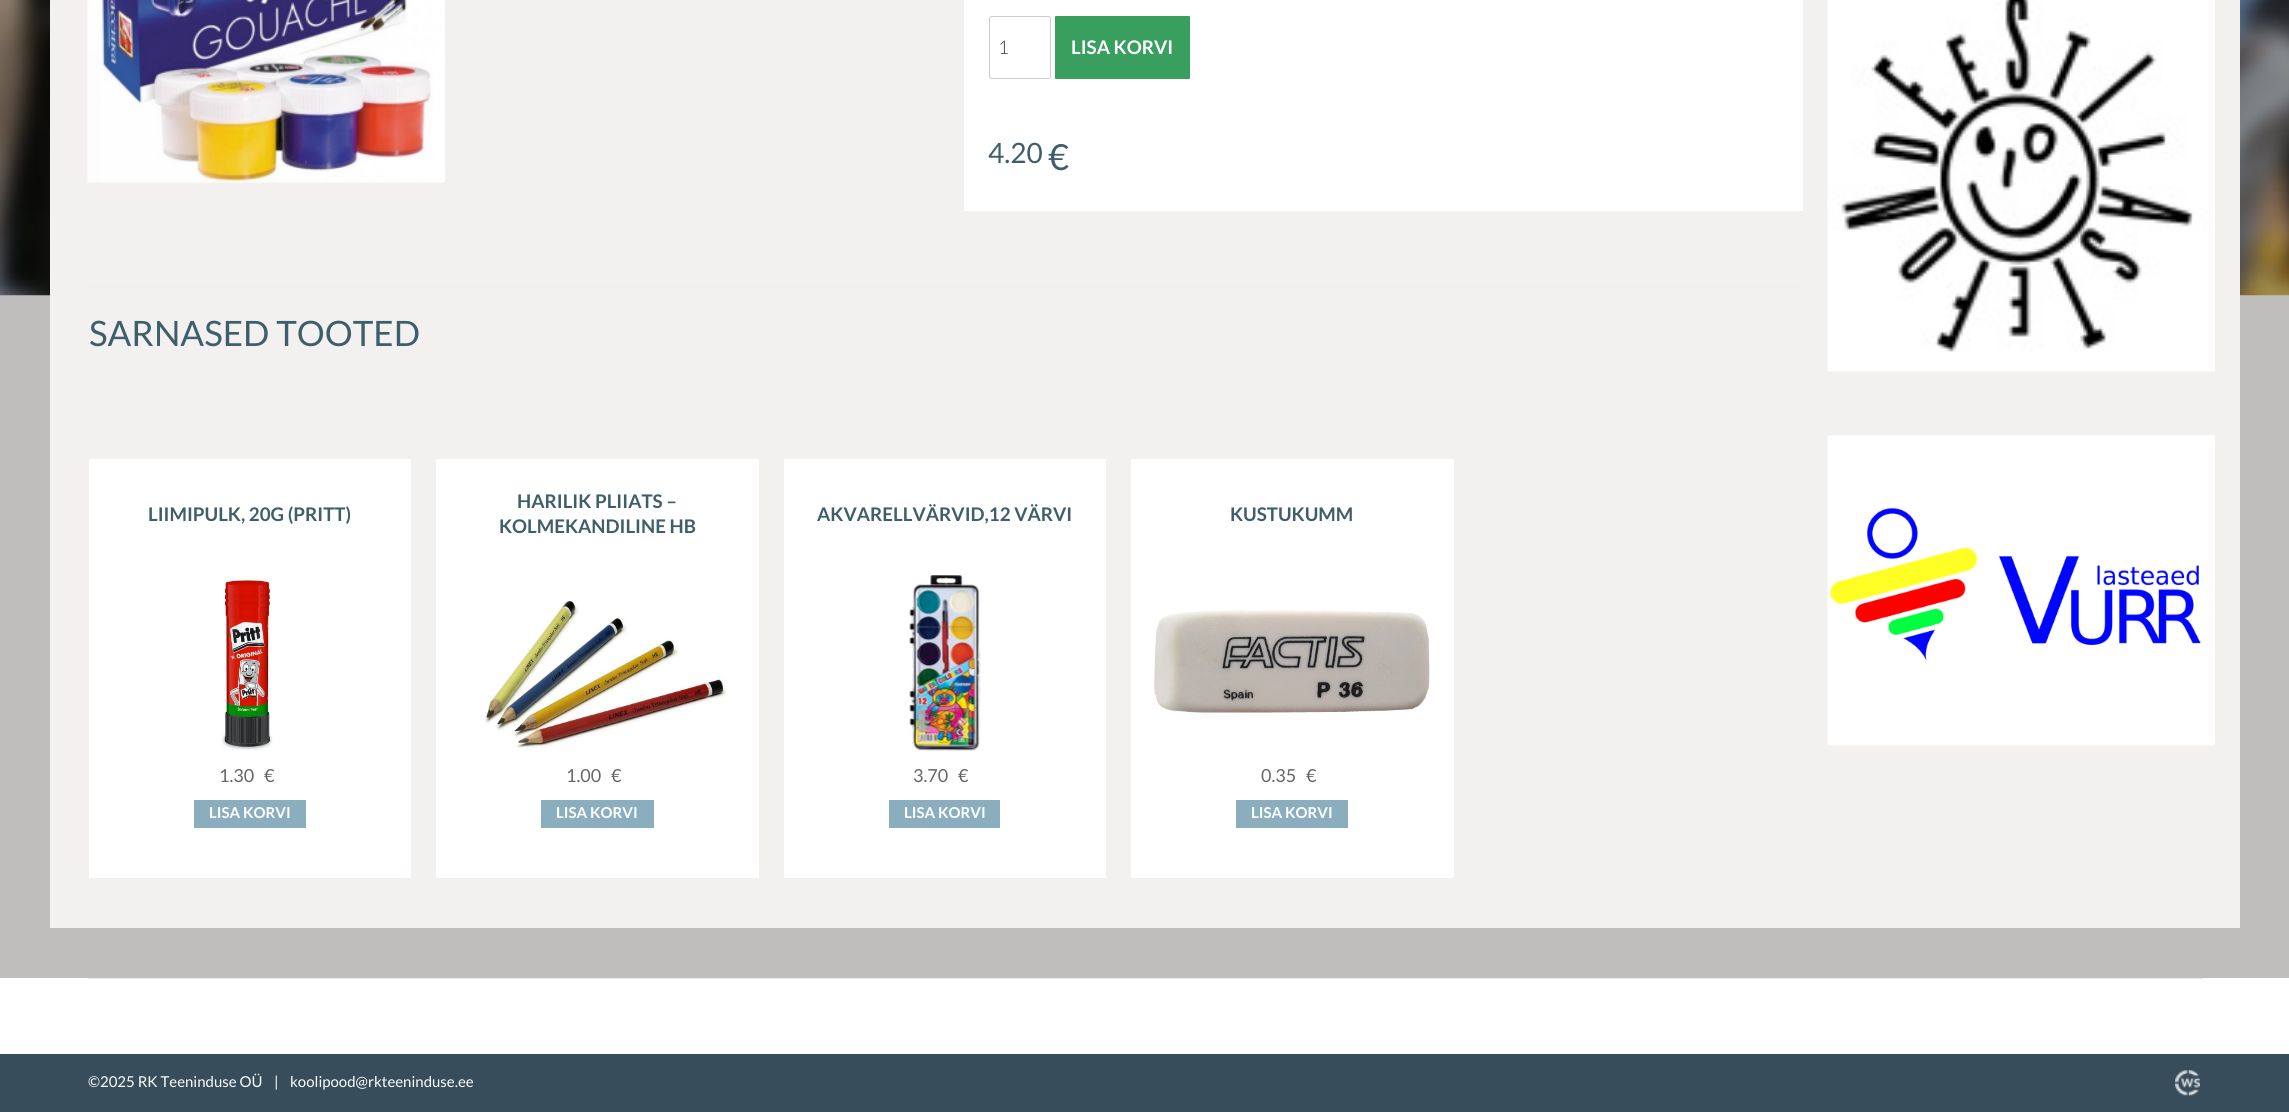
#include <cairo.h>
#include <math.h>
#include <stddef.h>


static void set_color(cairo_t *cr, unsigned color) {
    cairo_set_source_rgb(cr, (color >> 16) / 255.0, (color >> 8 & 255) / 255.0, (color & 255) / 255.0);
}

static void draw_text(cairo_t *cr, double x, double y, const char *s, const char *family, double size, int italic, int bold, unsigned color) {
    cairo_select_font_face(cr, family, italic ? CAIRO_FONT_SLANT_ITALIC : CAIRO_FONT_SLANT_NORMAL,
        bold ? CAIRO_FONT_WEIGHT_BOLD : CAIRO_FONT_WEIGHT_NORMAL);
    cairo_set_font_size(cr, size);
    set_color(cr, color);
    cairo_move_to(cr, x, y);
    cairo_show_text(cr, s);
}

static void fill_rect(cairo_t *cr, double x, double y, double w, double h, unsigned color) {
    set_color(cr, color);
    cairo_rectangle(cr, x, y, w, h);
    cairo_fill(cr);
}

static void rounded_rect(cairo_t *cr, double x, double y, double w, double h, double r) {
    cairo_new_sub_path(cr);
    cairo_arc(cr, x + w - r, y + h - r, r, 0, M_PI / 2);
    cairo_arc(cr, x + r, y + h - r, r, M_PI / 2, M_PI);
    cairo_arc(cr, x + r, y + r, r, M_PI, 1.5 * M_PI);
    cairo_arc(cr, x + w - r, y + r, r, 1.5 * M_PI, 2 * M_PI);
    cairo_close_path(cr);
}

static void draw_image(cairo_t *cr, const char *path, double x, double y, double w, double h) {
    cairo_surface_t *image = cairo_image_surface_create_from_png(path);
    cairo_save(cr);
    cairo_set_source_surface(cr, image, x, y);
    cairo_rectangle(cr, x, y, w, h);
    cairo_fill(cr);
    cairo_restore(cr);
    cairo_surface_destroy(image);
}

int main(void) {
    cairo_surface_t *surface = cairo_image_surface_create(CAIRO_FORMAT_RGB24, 2289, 1112);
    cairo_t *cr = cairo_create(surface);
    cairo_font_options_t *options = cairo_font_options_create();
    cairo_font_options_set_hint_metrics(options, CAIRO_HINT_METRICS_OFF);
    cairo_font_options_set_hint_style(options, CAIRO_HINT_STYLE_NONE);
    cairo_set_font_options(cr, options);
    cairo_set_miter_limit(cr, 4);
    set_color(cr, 0xBFBEBD);
    cairo_paint(cr);
    draw_image(cr, "assets/img1.png", 0, 0, 2289, 296);
    fill_rect(cr, 50, 0, 2190, 928, 0xF2F1F0);
    draw_image(cr, "assets/img2.png", 87, 0, 358, 183);
    fill_rect(cr, 964, 0, 839, 211, 0xFFFFFF);
    rounded_rect(cr, 989.5, 16.5, 61, 62, 2);
    set_color(cr, 0xCCCCCC);
    cairo_set_line_width(cr, 1);
    cairo_stroke(cr);
    draw_text(cr, 998, 54, "1", "Lato Light", 18.75, 0, 0, 0x333333);
    set_color(cr, 0x399F5F);
    rounded_rect(cr, 1055, 16, 135, 63, 1);
    cairo_fill(cr);
    draw_text(cr, 1071, 54, "LISA KORVI", "Lato", 18.75, 0, 1, 0xFFFFFF);
    draw_text(cr, 988, 163, "4.20", "Lato", 28, 0, 0, 0x3E5E69);
    draw_text(cr, 1048, 170, "€", "Lato", 36, 0, 0, 0x3E5E69);
    fill_rect(cr, 89, 286, 1712, 1, 0xEEEEEE);
    draw_text(cr, 89, 346, "SARNASED TOOTED", "Lato", 35, 0, 0, 0x3E5E69);
    fill_rect(cr, 89, 459, 322, 419, 0xFFFFFF);
    draw_text(cr, 148, 521, "LIIMIPULK, 20G (PRITT)", "Lato", 18.75, 0, 1, 0x3E5E69);
    draw_image(cr, "assets/img3.png", 221, 580, 52, 170);
    draw_text(cr, 219, 782, "1.30", "Lato", 18, 0, 0, 0x666666);
    draw_text(cr, 264, 782, "€", "Lato", 18, 0, 0, 0x666666);
    fill_rect(cr, 194, 800, 112, 28, 0x8AAEBE);
    draw_text(cr, 209, 818, "LISA KORVI", "Lato", 15, 0, 1, 0xFFFFFF);
    fill_rect(cr, 436, 459, 323, 419, 0xFFFFFF);
    draw_text(cr, 517, 508, "HARILIK PLIIATS –", "Lato", 18.75, 0, 1, 0x3E5E69);
    draw_text(cr, 499, 533, "KOLMEKANDILINE HB", "Lato", 18.75, 0, 1, 0x3E5E69);
    draw_image(cr, "assets/img4.png", 484, 600, 242, 149);
    draw_text(cr, 566, 782, "1.00", "Lato", 18, 0, 0, 0x666666);
    draw_text(cr, 611, 782, "€", "Lato", 18, 0, 0, 0x666666);
    fill_rect(cr, 541, 800, 113, 28, 0x8AAEBE);
    draw_text(cr, 556, 818, "LISA KORVI", "Lato", 15, 0, 1, 0xFFFFFF);
    fill_rect(cr, 784, 459, 322, 419, 0xFFFFFF);
    draw_text(cr, 817, 521, "AKVARELLVÄRVID,12 VÄRVI", "Lato", 18.75, 0, 1, 0x3E5E69);
    draw_image(cr, "assets/img5.png", 909, 575, 72, 176);
    draw_text(cr, 913, 782, "3.70", "Lato", 18, 0, 0, 0x666666);
    draw_text(cr, 958, 782, "€", "Lato", 18, 0, 0, 0x666666);
    fill_rect(cr, 889, 800, 111, 28, 0x8AAEBE);
    draw_text(cr, 904, 818, "LISA KORVI", "Lato", 15, 0, 1, 0xFFFFFF);
    fill_rect(cr, 1131, 459, 323, 419, 0xFFFFFF);
    draw_text(cr, 1230, 521, "KUSTUKUMM", "Lato", 18.75, 0, 1, 0x3E5E69);
    draw_image(cr, "assets/img6.png", 1154, 610, 276, 103);
    draw_text(cr, 1261, 782, "0.35", "Lato", 18, 0, 0, 0x666666);
    draw_text(cr, 1306, 782, "€", "Lato", 18, 0, 0, 0x666666);
    fill_rect(cr, 1236, 800, 112, 28, 0x8AAEBE);
    draw_text(cr, 1251, 818, "LISA KORVI", "Lato", 15, 0, 1, 0xFFFFFF);
    draw_image(cr, "assets/img7.png", 1827, 0, 388, 372);
    draw_image(cr, "assets/img8.png", 1827, 435, 388, 311);
    fill_rect(cr, 0, 978, 2289, 76, 0xFFFFFF);
    fill_rect(cr, 88, 978, 2115, 1, 0xEBE8E5);
    fill_rect(cr, 0, 1054, 2289, 58, 0x374D5B);
    draw_text(cr, 88, 1087, "©2025 RK Teeninduse OÜ", "Lato", 15, 0, 0, 0xFFFFFF);
    draw_text(cr, 274, 1087, "|", "Lato", 15, 0, 0, 0xFFFFFF);
    draw_text(cr, 290, 1087, "koolipood@rkteeninduse.ee", "Lato", 15, 0, 0, 0xFFFFFF);
    draw_image(cr, "assets/img9.png", 2175, 1070, 25, 26);
    cairo_surface_write_to_png(surface, "output.png");
    cairo_font_options_destroy(options);
    cairo_destroy(cr);
    cairo_surface_destroy(surface);
    return 0;
}
